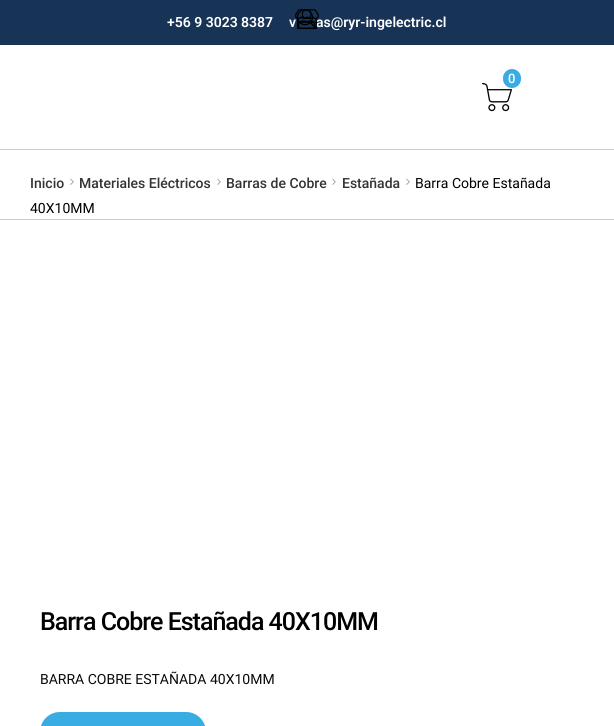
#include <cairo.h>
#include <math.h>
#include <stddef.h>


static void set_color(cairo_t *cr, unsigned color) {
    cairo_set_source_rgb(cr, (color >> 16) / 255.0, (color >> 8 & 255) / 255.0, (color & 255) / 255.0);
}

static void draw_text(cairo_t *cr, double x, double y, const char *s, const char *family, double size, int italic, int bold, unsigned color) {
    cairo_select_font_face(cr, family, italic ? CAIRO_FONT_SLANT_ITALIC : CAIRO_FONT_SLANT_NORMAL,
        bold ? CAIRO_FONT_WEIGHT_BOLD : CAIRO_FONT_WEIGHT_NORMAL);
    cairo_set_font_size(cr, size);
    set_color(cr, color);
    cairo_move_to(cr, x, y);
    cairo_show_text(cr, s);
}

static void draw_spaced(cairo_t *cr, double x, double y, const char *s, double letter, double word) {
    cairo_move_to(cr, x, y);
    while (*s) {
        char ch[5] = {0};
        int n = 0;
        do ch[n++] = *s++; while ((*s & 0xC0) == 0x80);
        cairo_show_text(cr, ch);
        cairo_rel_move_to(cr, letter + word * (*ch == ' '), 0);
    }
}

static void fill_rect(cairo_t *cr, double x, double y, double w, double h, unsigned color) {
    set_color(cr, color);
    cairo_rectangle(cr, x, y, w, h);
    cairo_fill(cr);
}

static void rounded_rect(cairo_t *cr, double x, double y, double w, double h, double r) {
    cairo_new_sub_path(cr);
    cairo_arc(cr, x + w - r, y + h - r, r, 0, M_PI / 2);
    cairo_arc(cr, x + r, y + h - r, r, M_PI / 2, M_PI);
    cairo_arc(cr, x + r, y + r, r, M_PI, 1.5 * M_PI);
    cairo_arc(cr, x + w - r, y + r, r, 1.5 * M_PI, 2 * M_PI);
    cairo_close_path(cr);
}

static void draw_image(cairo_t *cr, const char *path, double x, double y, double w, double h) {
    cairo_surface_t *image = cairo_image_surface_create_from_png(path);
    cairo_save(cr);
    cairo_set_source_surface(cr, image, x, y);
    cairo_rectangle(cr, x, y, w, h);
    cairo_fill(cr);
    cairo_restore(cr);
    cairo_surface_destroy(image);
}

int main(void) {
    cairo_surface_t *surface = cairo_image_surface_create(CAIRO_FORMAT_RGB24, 614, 726);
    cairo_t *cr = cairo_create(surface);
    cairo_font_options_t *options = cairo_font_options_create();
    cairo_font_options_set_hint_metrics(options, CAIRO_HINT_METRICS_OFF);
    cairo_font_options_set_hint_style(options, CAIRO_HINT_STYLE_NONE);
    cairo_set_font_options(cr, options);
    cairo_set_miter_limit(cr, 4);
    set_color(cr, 0xFFFFFF);
    cairo_paint(cr);
    fill_rect(cr, 0, 0, 614, 45, 0x173456);
    draw_text(cr, 289, 27, "v", "Roboto SemiBold", 14, 0, 0, 0xFFFFFF);
    draw_text(cr, 316, 27, "as@ryr-ingelectric.cl", "Roboto SemiBold", 14, 0, 0, 0xFFFFFF);
    draw_image(cr, "assets/img1.png", 295, 9, 24, 20);
    draw_image(cr, "assets/img3.png", 298, 9, 18, 19);
    draw_image(cr, "assets/img2.png", 297, 9, 20, 20);
    draw_text(cr, 167, 27, "+56 9 3023 8387", "Roboto SemiBold", 14, 0, 0, 0xFFFFFF);
    fill_rect(cr, 0, 149, 614, 1, 0xCFCFCF);
    draw_image(cr, "assets/img4.png", 482, 82, 30, 30);
    set_color(cr, 0x3AACE4);
    rounded_rect(cr, 503, 69, 18, 19, 9);
    cairo_fill(cr);
    draw_text(cr, 508, 83, "0", "Roboto Medium", 13, 0, 0, 0xFFFFFF);
    fill_rect(cr, 0, 219, 614, 1, 0xCBCBCB);
    draw_text(cr, 30, 188, "Inicio", "Roboto Medium", 14, 0, 0, 0x333333);
    draw_image(cr, "assets/img5.png", 70, 178, 4, 7);
    draw_text(cr, 79, 188, "Materiales Eléctricos", "Roboto Medium", 14, 0, 0, 0x333333);
    draw_image(cr, "assets/img5.png", 217, 178, 4, 7);
    draw_text(cr, 226, 188, "Barras de Cobre", "Roboto Medium", 14, 0, 0, 0x333333);
    draw_image(cr, "assets/img5.png", 332, 178, 4, 7);
    draw_text(cr, 342, 188, "Estañada", "Roboto Medium", 14, 0, 0, 0x333333);
    draw_image(cr, "assets/img5.png", 406, 178, 4, 7);
    draw_text(cr, 415, 188, "Barra Cobre Estañada", "Roboto", 14, 0, 0, 0x000000);
    draw_text(cr, 30, 213, "40X10MM", "Roboto", 14, 0, 0, 0x000000);
    cairo_select_font_face(cr, "Roboto Medium", CAIRO_FONT_SLANT_NORMAL, CAIRO_FONT_WEIGHT_NORMAL);
    cairo_set_font_size(cr, 25);
    draw_spaced(cr, 40, 630, "Barra Cobre Estañada 40X10MM", -1, 0);
    draw_text(cr, 40, 684, "BARRA COBRE ESTAÑADA 40X10MM", "Roboto", 14, 0, 0, 0x0A0A0A);
    set_color(cr, 0x3AACE4);
    rounded_rect(cr, 40, 712, 166, 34, 20);
    cairo_fill(cr);
    cairo_surface_write_to_png(surface, "output.png");
    cairo_font_options_destroy(options);
    cairo_destroy(cr);
    cairo_surface_destroy(surface);
    return 0;
}
